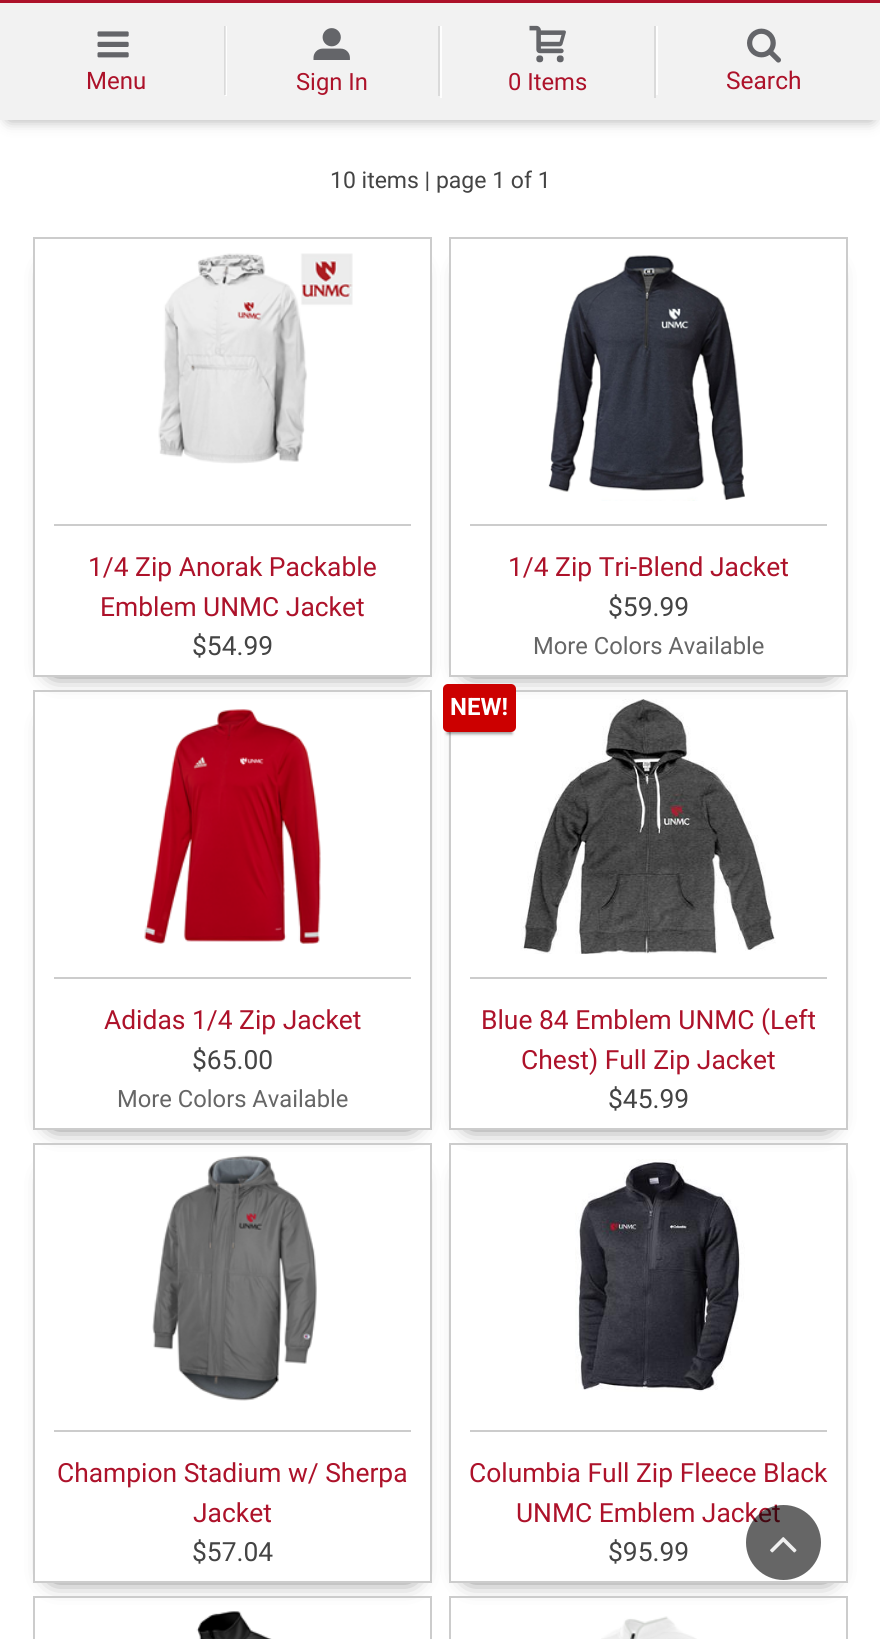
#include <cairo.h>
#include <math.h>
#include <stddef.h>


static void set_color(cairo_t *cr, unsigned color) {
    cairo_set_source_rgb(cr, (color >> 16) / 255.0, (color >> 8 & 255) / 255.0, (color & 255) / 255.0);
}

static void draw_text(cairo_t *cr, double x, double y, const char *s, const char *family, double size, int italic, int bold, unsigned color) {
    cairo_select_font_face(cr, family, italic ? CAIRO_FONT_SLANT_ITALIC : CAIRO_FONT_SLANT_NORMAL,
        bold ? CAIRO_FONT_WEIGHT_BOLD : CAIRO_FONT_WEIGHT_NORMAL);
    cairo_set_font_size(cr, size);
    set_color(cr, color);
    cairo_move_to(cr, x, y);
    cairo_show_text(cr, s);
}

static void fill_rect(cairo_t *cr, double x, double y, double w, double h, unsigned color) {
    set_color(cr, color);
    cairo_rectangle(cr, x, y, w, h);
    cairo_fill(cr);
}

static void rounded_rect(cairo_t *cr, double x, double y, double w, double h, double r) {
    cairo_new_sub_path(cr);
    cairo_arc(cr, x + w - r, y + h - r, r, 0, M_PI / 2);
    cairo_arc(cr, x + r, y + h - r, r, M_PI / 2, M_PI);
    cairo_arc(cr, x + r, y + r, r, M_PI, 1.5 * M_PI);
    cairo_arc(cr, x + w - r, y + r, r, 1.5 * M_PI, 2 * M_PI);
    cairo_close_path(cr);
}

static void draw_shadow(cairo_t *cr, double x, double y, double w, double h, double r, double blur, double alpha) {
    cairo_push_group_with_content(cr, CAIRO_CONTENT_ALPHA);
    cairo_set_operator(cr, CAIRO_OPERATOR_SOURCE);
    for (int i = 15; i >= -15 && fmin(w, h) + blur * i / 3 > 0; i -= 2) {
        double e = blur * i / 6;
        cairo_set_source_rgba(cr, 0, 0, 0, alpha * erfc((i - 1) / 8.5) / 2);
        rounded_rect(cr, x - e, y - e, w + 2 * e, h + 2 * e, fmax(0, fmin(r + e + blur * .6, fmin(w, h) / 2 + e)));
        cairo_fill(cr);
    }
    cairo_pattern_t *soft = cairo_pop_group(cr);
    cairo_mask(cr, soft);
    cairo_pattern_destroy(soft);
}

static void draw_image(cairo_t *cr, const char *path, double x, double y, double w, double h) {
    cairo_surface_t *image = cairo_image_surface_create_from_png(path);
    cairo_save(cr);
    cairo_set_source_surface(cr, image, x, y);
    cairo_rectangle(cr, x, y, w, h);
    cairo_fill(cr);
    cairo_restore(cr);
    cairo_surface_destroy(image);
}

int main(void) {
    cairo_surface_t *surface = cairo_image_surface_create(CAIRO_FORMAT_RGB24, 880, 1639);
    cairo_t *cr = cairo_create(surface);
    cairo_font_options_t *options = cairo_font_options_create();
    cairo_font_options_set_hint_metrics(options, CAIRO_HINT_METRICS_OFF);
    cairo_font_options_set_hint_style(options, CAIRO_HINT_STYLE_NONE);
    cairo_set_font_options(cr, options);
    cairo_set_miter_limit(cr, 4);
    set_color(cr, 0xFFFFFF);
    cairo_paint(cr);
    set_color(cr, 0x000000);
    draw_shadow(cr, 9, 17, 863, 102, 0, 7.5, 0.4);
    fill_rect(cr, 0, 3, 880, 117, 0xF2F2F2);
    fill_rect(cr, 0, 0, 880, 3, 0xAD122A);
    fill_rect(cr, 225, 26, 2, 70, 0xFEFEFE);
    cairo_set_source_rgba(cr, 0, 0, 0, 0.1);
    cairo_rectangle(cr, 224, 26, 2, 69);
    cairo_fill(cr);
    draw_image(cr, "assets/img1.png", 97, 31, 32, 27);
    draw_text(cr, 86, 89, "Menu", "Roboto", 24, 0, 0, 0xAD122A);
    fill_rect(cr, 438, 26, 2, 70, 0xDADADA);
    draw_image(cr, "assets/img2.png", 313, 28, 37, 32);
    draw_text(cr, 296, 90, "Sign In", "Roboto", 23.75, 0, 0, 0xAD122A);
    fill_rect(cr, 654, 26, 2, 72, 0xDADADA);
    fill_rect(cr, 440, 26, 2, 72, 0xFEFEFE);
    draw_image(cr, "assets/img3.png", 529, 25, 37, 38);
    draw_text(cr, 508, 90, "0 Items", "Roboto", 23.75, 0, 0, 0xAD122A);
    fill_rect(cr, 656, 26, 2, 69, 0xFEFEFE);
    draw_image(cr, "assets/img4.png", 747, 28, 34, 35);
    draw_text(cr, 726, 89, "Search", "Roboto", 24.5, 0, 0, 0xAD122A);
    draw_text(cr, 330, 188, "10 items | page 1 of 1", "Roboto", 23, 0, 0, 0x444444);
    cairo_save(cr);
    cairo_set_fill_rule(cr, CAIRO_FILL_RULE_EVEN_ODD);
    cairo_new_path(cr);
    cairo_move_to(cr, 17, 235);
    cairo_line_to(cr, 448, 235);
    cairo_line_to(cr, 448, 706);
    cairo_line_to(cr, 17, 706);
    cairo_close_path(cr);
    cairo_move_to(cr, 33, 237);
    cairo_line_to(cr, 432, 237);
    cairo_line_to(cr, 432, 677);
    cairo_line_to(cr, 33, 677);
    cairo_close_path(cr);
    cairo_clip(cr);
    set_color(cr, 0x000000);
    draw_shadow(cr, 54, 272, 357, 397, 0, 12, 0.9);
    cairo_restore(cr);
    cairo_rectangle(cr, 34, 238, 397, 438);
    set_color(cr, 0xCCCCCC);
    cairo_stroke(cr);
    draw_image(cr, "assets/img5.png", 158, 253, 195, 211);
    fill_rect(cr, 54, 524, 357, 2, 0xCCCCCC);
    draw_text(cr, 88, 576, "1/4 Zip Anorak Packable", "Roboto", 26.4, 0, 0, 0xAD122A);
    draw_text(cr, 100, 616, "Emblem UNMC Jacket", "Roboto", 26.4, 0, 0, 0xAD122A);
    draw_text(cr, 192, 655, "$54.99", "Roboto", 26.4, 0, 0, 0x444444);
    cairo_save(cr);
    cairo_set_fill_rule(cr, CAIRO_FILL_RULE_EVEN_ODD);
    cairo_new_path(cr);
    cairo_move_to(cr, 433, 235);
    cairo_line_to(cr, 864, 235);
    cairo_line_to(cr, 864, 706);
    cairo_line_to(cr, 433, 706);
    cairo_close_path(cr);
    cairo_move_to(cr, 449, 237);
    cairo_line_to(cr, 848, 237);
    cairo_line_to(cr, 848, 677);
    cairo_line_to(cr, 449, 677);
    cairo_close_path(cr);
    cairo_clip(cr);
    set_color(cr, 0x000000);
    draw_shadow(cr, 470, 272, 357, 397, 0, 12, 0.9);
    cairo_restore(cr);
    cairo_rectangle(cr, 450, 238, 397, 438);
    set_color(cr, 0xCCCCCC);
    cairo_stroke(cr);
    draw_image(cr, "assets/img6.png", 548, 255, 197, 246);
    fill_rect(cr, 470, 524, 357, 2, 0xCCCCCC);
    draw_text(cr, 508, 576, "1/4 Zip Tri-Blend Jacket", "Roboto", 26.4, 0, 0, 0xAD122A);
    draw_text(cr, 608, 616, "$59.99", "Roboto", 26.4, 0, 0, 0x444444);
    draw_text(cr, 533, 654, "More Colors Available", "Roboto", 23.75, 0, 0, 0x666666);
    cairo_save(cr);
    cairo_set_fill_rule(cr, CAIRO_FILL_RULE_EVEN_ODD);
    cairo_new_path(cr);
    cairo_move_to(cr, 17, 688);
    cairo_line_to(cr, 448, 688);
    cairo_line_to(cr, 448, 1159);
    cairo_line_to(cr, 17, 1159);
    cairo_close_path(cr);
    cairo_move_to(cr, 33, 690);
    cairo_line_to(cr, 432, 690);
    cairo_line_to(cr, 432, 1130);
    cairo_line_to(cr, 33, 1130);
    cairo_close_path(cr);
    cairo_clip(cr);
    set_color(cr, 0x000000);
    draw_shadow(cr, 54, 725, 357, 397, 0, 12, 0.9);
    cairo_restore(cr);
    cairo_rectangle(cr, 34, 691, 397, 438);
    set_color(cr, 0xCCCCCC);
    cairo_stroke(cr);
    draw_image(cr, "assets/img7.png", 144, 709, 177, 235);
    fill_rect(cr, 54, 977, 357, 2, 0xCCCCCC);
    draw_text(cr, 104, 1029, "Adidas 1/4 Zip Jacket", "Roboto", 26.4, 0, 0, 0xAD122A);
    draw_text(cr, 192, 1069, "$65.00", "Roboto", 26.4, 0, 0, 0x444444);
    draw_text(cr, 117, 1107, "More Colors Available", "Roboto", 23.75, 0, 0, 0x666666);
    cairo_save(cr);
    cairo_set_fill_rule(cr, CAIRO_FILL_RULE_EVEN_ODD);
    cairo_new_path(cr);
    cairo_move_to(cr, 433, 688);
    cairo_line_to(cr, 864, 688);
    cairo_line_to(cr, 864, 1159);
    cairo_line_to(cr, 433, 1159);
    cairo_close_path(cr);
    cairo_move_to(cr, 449, 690);
    cairo_line_to(cr, 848, 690);
    cairo_line_to(cr, 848, 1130);
    cairo_line_to(cr, 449, 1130);
    cairo_close_path(cr);
    cairo_clip(cr);
    set_color(cr, 0x000000);
    draw_shadow(cr, 470, 725, 357, 397, 0, 12, 0.9);
    cairo_restore(cr);
    cairo_rectangle(cr, 450, 691, 397, 438);
    set_color(cr, 0xCCCCCC);
    cairo_stroke(cr);
    set_color(cr, 0x000000);
    draw_shadow(cr, 447, 695, 65, 39, 0, 1.5, 0.4);
    set_color(cr, 0xCC0000);
    rounded_rect(cr, 443, 684, 73, 48, 5);
    cairo_fill(cr);
    draw_text(cr, 450, 715, "NEW!", "Roboto", 24, 0, 1, 0xFFFFFF);
    draw_image(cr, "assets/img8.png", 520, 699, 256, 255);
    fill_rect(cr, 470, 977, 357, 2, 0xCCCCCC);
    draw_text(cr, 481, 1029, "Blue 84 Emblem UNMC (Left", "Roboto", 26.4, 0, 0, 0xAD122A);
    draw_text(cr, 521, 1069, "Chest) Full Zip Jacket", "Roboto", 26.4, 0, 0, 0xAD122A);
    draw_text(cr, 608, 1108, "$45.99", "Roboto", 26.4, 0, 0, 0x444444);
    cairo_save(cr);
    cairo_set_fill_rule(cr, CAIRO_FILL_RULE_EVEN_ODD);
    cairo_new_path(cr);
    cairo_move_to(cr, 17, 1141);
    cairo_line_to(cr, 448, 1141);
    cairo_line_to(cr, 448, 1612);
    cairo_line_to(cr, 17, 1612);
    cairo_close_path(cr);
    cairo_move_to(cr, 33, 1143);
    cairo_line_to(cr, 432, 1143);
    cairo_line_to(cr, 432, 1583);
    cairo_line_to(cr, 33, 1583);
    cairo_close_path(cr);
    cairo_clip(cr);
    set_color(cr, 0x000000);
    draw_shadow(cr, 54, 1178, 357, 397, 0, 12, 0.9);
    cairo_restore(cr);
    cairo_rectangle(cr, 34, 1144, 397, 438);
    set_color(cr, 0xCCCCCC);
    cairo_stroke(cr);
    draw_image(cr, "assets/img9.png", 152, 1155, 165, 246);
    fill_rect(cr, 54, 1430, 357, 2, 0xCCCCCC);
    draw_text(cr, 57, 1482, "Champion Stadium w/ Sherpa", "Roboto", 26.4, 0, 0, 0xAD122A);
    draw_text(cr, 193, 1522, "Jacket", "Roboto", 26.4, 0, 0, 0xAD122A);
    draw_text(cr, 192, 1561, "$57.04", "Roboto", 26.4, 0, 0, 0x444444);
    cairo_save(cr);
    cairo_set_fill_rule(cr, CAIRO_FILL_RULE_EVEN_ODD);
    cairo_new_path(cr);
    cairo_move_to(cr, 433, 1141);
    cairo_line_to(cr, 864, 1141);
    cairo_line_to(cr, 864, 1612);
    cairo_line_to(cr, 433, 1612);
    cairo_close_path(cr);
    cairo_move_to(cr, 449, 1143);
    cairo_line_to(cr, 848, 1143);
    cairo_line_to(cr, 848, 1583);
    cairo_line_to(cr, 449, 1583);
    cairo_close_path(cr);
    cairo_clip(cr);
    set_color(cr, 0x000000);
    draw_shadow(cr, 470, 1178, 357, 397, 0, 12, 0.9);
    cairo_restore(cr);
    cairo_rectangle(cr, 450, 1144, 397, 438);
    set_color(cr, 0xCCCCCC);
    cairo_stroke(cr);
    draw_image(cr, "assets/img10.png", 575, 1159, 170, 233);
    fill_rect(cr, 470, 1430, 357, 2, 0xCCCCCC);
    draw_text(cr, 469, 1482, "Columbia Full Zip Fleece Black", "Roboto", 26.4, 0, 0, 0xAD122A);
    draw_text(cr, 516, 1522, "UNMC Emblem Jacket", "Roboto", 26.4, 0, 0, 0xAD122A);
    draw_text(cr, 608, 1561, "$95.99", "Roboto", 26.4, 0, 0, 0x444444);
    cairo_rectangle(cr, 34, 1597, 397, 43);
    set_color(cr, 0xCCCCCC);
    cairo_stroke(cr);
    draw_image(cr, "assets/img11.png", 196, 1611, 76, 28);
    cairo_rectangle(cr, 450, 1597, 397, 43);
    cairo_stroke(cr);
    draw_image(cr, "assets/img12.png", 601, 1616, 96, 23);
    cairo_set_source_rgba(cr, 0, 0, 0, 0.6);
    cairo_arc(cr, 783.5, 1542.5, 37.5, 0, 2 * M_PI);
    cairo_fill(cr);
    draw_image(cr, "assets/img13.png", 770, 1537, 27, 16);
    cairo_surface_write_to_png(surface, "output.png");
    cairo_font_options_destroy(options);
    cairo_destroy(cr);
    cairo_surface_destroy(surface);
    return 0;
}
